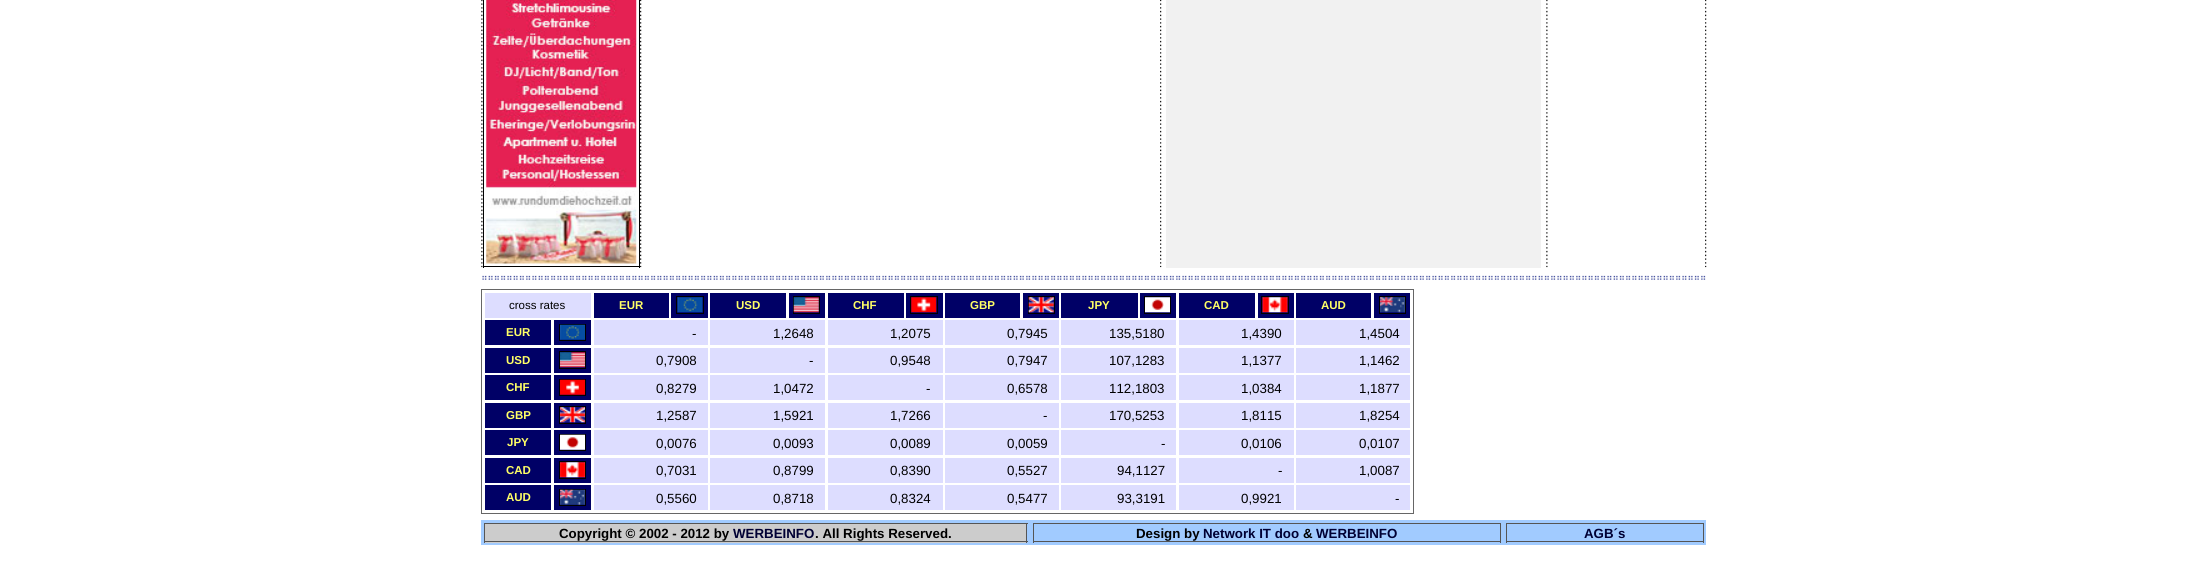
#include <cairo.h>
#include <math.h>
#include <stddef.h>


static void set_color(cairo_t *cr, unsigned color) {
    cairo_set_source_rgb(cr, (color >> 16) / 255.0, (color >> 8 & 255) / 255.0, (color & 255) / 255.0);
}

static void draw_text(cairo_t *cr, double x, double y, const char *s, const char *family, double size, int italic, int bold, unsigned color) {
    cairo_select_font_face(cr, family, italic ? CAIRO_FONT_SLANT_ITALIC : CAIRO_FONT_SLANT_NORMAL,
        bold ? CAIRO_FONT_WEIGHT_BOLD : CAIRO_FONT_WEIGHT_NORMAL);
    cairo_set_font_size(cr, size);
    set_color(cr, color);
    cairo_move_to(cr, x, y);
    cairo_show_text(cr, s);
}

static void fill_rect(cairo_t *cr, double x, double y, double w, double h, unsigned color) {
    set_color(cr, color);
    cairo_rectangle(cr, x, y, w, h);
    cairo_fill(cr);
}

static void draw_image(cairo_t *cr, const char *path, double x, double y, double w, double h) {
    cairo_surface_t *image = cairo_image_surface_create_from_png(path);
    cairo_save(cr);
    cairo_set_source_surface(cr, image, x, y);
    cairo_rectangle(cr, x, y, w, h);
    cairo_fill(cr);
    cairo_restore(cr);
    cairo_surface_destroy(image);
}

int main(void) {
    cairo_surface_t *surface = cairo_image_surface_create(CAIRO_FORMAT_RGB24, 2187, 586);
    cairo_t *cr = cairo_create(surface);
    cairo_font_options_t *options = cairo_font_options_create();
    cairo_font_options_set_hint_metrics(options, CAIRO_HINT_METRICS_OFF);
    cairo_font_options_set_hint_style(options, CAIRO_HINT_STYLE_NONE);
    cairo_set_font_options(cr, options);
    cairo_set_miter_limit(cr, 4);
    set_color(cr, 0xFFFFFF);
    cairo_paint(cr);
    draw_image(cr, "assets/img1.png", 481, 0, 2, 268);
    fill_rect(cr, 639, 0, 1, 268, 0x000000);
    fill_rect(cr, 483, 266, 157, 1, 0x000000);
    fill_rect(cr, 483, 0, 1, 268, 0x000000);
    draw_image(cr, "assets/img2.png", 486, 0, 151, 264);
    draw_image(cr, "assets/img3.png", 640, 0, 2, 268);
    draw_image(cr, "assets/img3.png", 1160, 0, 2, 268);
    fill_rect(cr, 1166, 0, 375, 268, 0xF1F1F1);
    draw_image(cr, "assets/img1.png", 1546, 0, 2, 268);
    draw_image(cr, "assets/img3.png", 1705, 0, 2, 268);
    draw_image(cr, "assets/img4.png", 482, 275, 1224, 5);
    fill_rect(cr, 481, 289, 933, 1, 0x666666);
    fill_rect(cr, 1413, 289, 1, 225, 0x666666);
    fill_rect(cr, 481, 513, 933, 1, 0x666666);
    fill_rect(cr, 481, 289, 1, 225, 0x666666);
    fill_rect(cr, 485, 293, 106, 25, 0xDDDDFF);
    draw_text(cr, 509, 309, "cross rates", "Liberation Sans", 11.5, 0, 0, 0x000000);
    fill_rect(cr, 594, 293, 75, 25, 0x000066);
    draw_text(cr, 619, 309, "EUR", "Liberation Sans", 11.5, 0, 1, 0xFFFF66);
    fill_rect(cr, 671, 293, 37, 25, 0x000066);
    cairo_rectangle(cr, 676.5, 296.5, 27, 17);
    set_color(cr, 0x000000);
    cairo_set_line_width(cr, 1);
    cairo_stroke(cr);
    draw_image(cr, "assets/img5.png", 677, 297, 26, 16);
    fill_rect(cr, 710, 293, 76, 25, 0x000066);
    draw_text(cr, 736, 309, "USD", "Liberation Sans", 11.5, 0, 1, 0xFFFF66);
    fill_rect(cr, 789, 293, 36, 25, 0x000066);
    cairo_rectangle(cr, 793.5, 296.5, 26, 17);
    set_color(cr, 0x000000);
    cairo_stroke(cr);
    draw_image(cr, "assets/img6.png", 793, 297, 26, 16);
    fill_rect(cr, 828, 293, 76, 25, 0x000066);
    draw_text(cr, 853, 309, "CHF", "Liberation Sans", 11.5, 0, 1, 0xFFFF66);
    fill_rect(cr, 906, 293, 37, 25, 0x000066);
    cairo_rectangle(cr, 910.5, 296.5, 27, 17);
    set_color(cr, 0x000000);
    cairo_stroke(cr);
    draw_image(cr, "assets/img7.png", 911, 297, 26, 16);
    fill_rect(cr, 945, 293, 75, 25, 0x000066);
    draw_text(cr, 970, 309, "GBP", "Liberation Sans", 11.5, 0, 1, 0xFFFF66);
    fill_rect(cr, 1023, 293, 36, 25, 0x000066);
    cairo_rectangle(cr, 1028.5, 296.5, 26, 17);
    set_color(cr, 0x000000);
    cairo_stroke(cr);
    draw_image(cr, "assets/img8.png", 1028, 297, 26, 16);
    fill_rect(cr, 1061, 293, 77, 25, 0x000066);
    draw_text(cr, 1088, 309, "JPY", "Liberation Sans", 11.5, 0, 1, 0xFFFF66);
    fill_rect(cr, 1140, 293, 36, 25, 0x000066);
    cairo_rectangle(cr, 1144.5, 296.5, 26, 17);
    set_color(cr, 0x000000);
    cairo_stroke(cr);
    draw_image(cr, "assets/img9.png", 1145, 297, 25, 16);
    fill_rect(cr, 1179, 293, 76, 25, 0x000066);
    draw_text(cr, 1204, 309, "CAD", "Liberation Sans", 11.5, 0, 1, 0xFFFF66);
    fill_rect(cr, 1258, 293, 36, 25, 0x000066);
    cairo_rectangle(cr, 1261.5, 296.5, 27, 17);
    set_color(cr, 0x000000);
    cairo_stroke(cr);
    draw_image(cr, "assets/img10.png", 1262, 297, 26, 16);
    fill_rect(cr, 1296, 293, 75, 25, 0x000066);
    draw_text(cr, 1321, 309, "AUD", "Liberation Sans", 11.5, 0, 1, 0xFFFF66);
    fill_rect(cr, 1374, 293, 36, 25, 0x000066);
    cairo_rectangle(cr, 1379.5, 296.5, 26, 17);
    set_color(cr, 0x000000);
    cairo_stroke(cr);
    draw_image(cr, "assets/img11.png", 1380, 297, 25, 16);
    fill_rect(cr, 485, 320, 66, 25, 0x000066);
    draw_text(cr, 506, 336, "EUR", "Liberation Sans", 11.5, 0, 1, 0xFFFF66);
    fill_rect(cr, 554, 320, 37, 25, 0x000066);
    cairo_rectangle(cr, 559.5, 324.5, 26, 16);
    set_color(cr, 0x000000);
    cairo_stroke(cr);
    draw_image(cr, "assets/img12.png", 560, 324, 25, 16);
    fill_rect(cr, 594, 320, 114, 25, 0xDDDDFF);
    draw_text(cr, 692, 338, "-", "Liberation Sans", 13.3, 0, 0, 0x000000);
    fill_rect(cr, 710, 320, 115, 25, 0xDDDDFF);
    draw_text(cr, 773, 338, "1,2648", "Liberation Sans", 13.3, 0, 0, 0x000000);
    fill_rect(cr, 828, 320, 115, 25, 0xDDDDFF);
    draw_text(cr, 890, 338, "1,2075", "Liberation Sans", 13.3, 0, 0, 0x000000);
    fill_rect(cr, 945, 320, 114, 25, 0xDDDDFF);
    draw_text(cr, 1007, 338, "0,7945", "Liberation Sans", 13.3, 0, 0, 0x000000);
    fill_rect(cr, 1061, 320, 115, 25, 0xDDDDFF);
    draw_text(cr, 1109, 338, "135,5180", "Liberation Sans", 13.3, 0, 0, 0x000000);
    fill_rect(cr, 1179, 320, 115, 25, 0xDDDDFF);
    draw_text(cr, 1241, 338, "1,4390", "Liberation Sans", 13.3, 0, 0, 0x000000);
    fill_rect(cr, 1296, 320, 114, 25, 0xDDDDFF);
    draw_text(cr, 1359, 338, "1,4504", "Liberation Sans", 13.3, 0, 0, 0x000000);
    fill_rect(cr, 485, 348, 66, 25, 0x000066);
    draw_text(cr, 506, 364, "USD", "Liberation Sans", 11.5, 0, 1, 0xFFFF66);
    fill_rect(cr, 554, 348, 37, 25, 0x000066);
    cairo_rectangle(cr, 559.5, 351.5, 26, 17);
    set_color(cr, 0x000000);
    cairo_stroke(cr);
    draw_image(cr, "assets/img13.png", 560, 352, 25, 16);
    fill_rect(cr, 594, 348, 114, 25, 0xDDDDFF);
    draw_text(cr, 656, 365, "0,7908", "Liberation Sans", 13.3, 0, 0, 0x000000);
    fill_rect(cr, 710, 348, 115, 25, 0xDDDDFF);
    draw_text(cr, 809, 365, "-", "Liberation Sans", 13.3, 0, 0, 0x000000);
    fill_rect(cr, 828, 348, 115, 25, 0xDDDDFF);
    draw_text(cr, 890, 365, "0,9548", "Liberation Sans", 13.3, 0, 0, 0x000000);
    fill_rect(cr, 945, 348, 114, 25, 0xDDDDFF);
    draw_text(cr, 1007, 365, "0,7947", "Liberation Sans", 13.3, 0, 0, 0x000000);
    fill_rect(cr, 1061, 348, 115, 25, 0xDDDDFF);
    draw_text(cr, 1109, 365, "107,1283", "Liberation Sans", 13.3, 0, 0, 0x000000);
    fill_rect(cr, 1179, 348, 115, 25, 0xDDDDFF);
    draw_text(cr, 1241, 365, "1,1377", "Liberation Sans", 13.3, 0, 0, 0x000000);
    fill_rect(cr, 1296, 348, 114, 25, 0xDDDDFF);
    draw_text(cr, 1359, 365, "1,1462", "Liberation Sans", 13.3, 0, 0, 0x000000);
    fill_rect(cr, 485, 375, 66, 25, 0x000066);
    draw_text(cr, 506, 391, "CHF", "Liberation Sans", 11.5, 0, 1, 0xFFFF66);
    fill_rect(cr, 554, 375, 37, 25, 0x000066);
    cairo_rectangle(cr, 559.5, 379.5, 26, 16);
    set_color(cr, 0x000000);
    cairo_stroke(cr);
    draw_image(cr, "assets/img14.png", 560, 379, 25, 16);
    fill_rect(cr, 594, 375, 114, 25, 0xDDDDFF);
    draw_text(cr, 656, 393, "0,8279", "Liberation Sans", 13.3, 0, 0, 0x000000);
    fill_rect(cr, 710, 375, 115, 25, 0xDDDDFF);
    draw_text(cr, 773, 393, "1,0472", "Liberation Sans", 13.3, 0, 0, 0x000000);
    fill_rect(cr, 828, 375, 115, 25, 0xDDDDFF);
    draw_text(cr, 926, 393, "-", "Liberation Sans", 13.3, 0, 0, 0x000000);
    fill_rect(cr, 945, 375, 114, 25, 0xDDDDFF);
    draw_text(cr, 1007, 393, "0,6578", "Liberation Sans", 13.3, 0, 0, 0x000000);
    fill_rect(cr, 1061, 375, 115, 25, 0xDDDDFF);
    draw_text(cr, 1109, 393, "112,1803", "Liberation Sans", 13.3, 0, 0, 0x000000);
    fill_rect(cr, 1179, 375, 115, 25, 0xDDDDFF);
    draw_text(cr, 1241, 393, "1,0384", "Liberation Sans", 13.3, 0, 0, 0x000000);
    fill_rect(cr, 1296, 375, 114, 25, 0xDDDDFF);
    draw_text(cr, 1359, 393, "1,1877", "Liberation Sans", 13.3, 0, 0, 0x000000);
    fill_rect(cr, 485, 403, 66, 25, 0x000066);
    draw_text(cr, 506, 419, "GBP", "Liberation Sans", 11.5, 0, 1, 0xFFFF66);
    fill_rect(cr, 554, 403, 37, 25, 0x000066);
    cairo_rectangle(cr, 559.5, 406.5, 26, 17);
    set_color(cr, 0x000000);
    cairo_stroke(cr);
    draw_image(cr, "assets/img15.png", 560, 407, 25, 16);
    fill_rect(cr, 594, 403, 114, 25, 0xDDDDFF);
    draw_text(cr, 656, 420, "1,2587", "Liberation Sans", 13.3, 0, 0, 0x000000);
    fill_rect(cr, 710, 403, 115, 25, 0xDDDDFF);
    draw_text(cr, 773, 420, "1,5921", "Liberation Sans", 13.3, 0, 0, 0x000000);
    fill_rect(cr, 828, 403, 115, 25, 0xDDDDFF);
    draw_text(cr, 890, 420, "1,7266", "Liberation Sans", 13.3, 0, 0, 0x000000);
    fill_rect(cr, 945, 403, 114, 25, 0xDDDDFF);
    draw_text(cr, 1043, 420, "-", "Liberation Sans", 13.3, 0, 0, 0x000000);
    fill_rect(cr, 1061, 403, 115, 25, 0xDDDDFF);
    draw_text(cr, 1109, 420, "170,5253", "Liberation Sans", 13.3, 0, 0, 0x000000);
    fill_rect(cr, 1179, 403, 115, 25, 0xDDDDFF);
    draw_text(cr, 1241, 420, "1,8115", "Liberation Sans", 13.3, 0, 0, 0x000000);
    fill_rect(cr, 1296, 403, 114, 25, 0xDDDDFF);
    draw_text(cr, 1359, 420, "1,8254", "Liberation Sans", 13.3, 0, 0, 0x000000);
    fill_rect(cr, 485, 430, 66, 25, 0x000066);
    draw_text(cr, 507, 446, "JPY", "Liberation Sans", 11.5, 0, 1, 0xFFFF66);
    fill_rect(cr, 554, 430, 37, 25, 0x000066);
    cairo_rectangle(cr, 559.5, 434.5, 26, 16);
    set_color(cr, 0x000000);
    cairo_stroke(cr);
    draw_image(cr, "assets/img16.png", 560, 434, 25, 16);
    fill_rect(cr, 594, 430, 114, 25, 0xDDDDFF);
    draw_text(cr, 656, 448, "0,0076", "Liberation Sans", 13.3, 0, 0, 0x000000);
    fill_rect(cr, 710, 430, 115, 25, 0xDDDDFF);
    draw_text(cr, 773, 448, "0,0093", "Liberation Sans", 13.3, 0, 0, 0x000000);
    fill_rect(cr, 828, 430, 115, 25, 0xDDDDFF);
    draw_text(cr, 890, 448, "0,0089", "Liberation Sans", 13.3, 0, 0, 0x000000);
    fill_rect(cr, 945, 430, 114, 25, 0xDDDDFF);
    draw_text(cr, 1007, 448, "0,0059", "Liberation Sans", 13.3, 0, 0, 0x000000);
    fill_rect(cr, 1061, 430, 115, 25, 0xDDDDFF);
    draw_text(cr, 1161, 448, "-", "Liberation Sans", 13.3, 0, 0, 0x000000);
    fill_rect(cr, 1179, 430, 115, 25, 0xDDDDFF);
    draw_text(cr, 1241, 448, "0,0106", "Liberation Sans", 13.3, 0, 0, 0x000000);
    fill_rect(cr, 1296, 430, 114, 25, 0xDDDDFF);
    draw_text(cr, 1359, 448, "0,0107", "Liberation Sans", 13.3, 0, 0, 0x000000);
    fill_rect(cr, 485, 458, 66, 25, 0x000066);
    draw_text(cr, 506, 474, "CAD", "Liberation Sans", 11.5, 0, 1, 0xFFFF66);
    fill_rect(cr, 554, 458, 37, 25, 0x000066);
    cairo_rectangle(cr, 559.5, 461.5, 26, 17);
    set_color(cr, 0x000000);
    cairo_stroke(cr);
    draw_image(cr, "assets/img17.png", 560, 462, 25, 16);
    fill_rect(cr, 594, 458, 114, 25, 0xDDDDFF);
    draw_text(cr, 656, 475, "0,7031", "Liberation Sans", 13.3, 0, 0, 0x000000);
    fill_rect(cr, 710, 458, 115, 25, 0xDDDDFF);
    draw_text(cr, 773, 475, "0,8799", "Liberation Sans", 13.3, 0, 0, 0x000000);
    fill_rect(cr, 828, 458, 115, 25, 0xDDDDFF);
    draw_text(cr, 890, 475, "0,8390", "Liberation Sans", 13.3, 0, 0, 0x000000);
    fill_rect(cr, 945, 458, 114, 25, 0xDDDDFF);
    draw_text(cr, 1007, 475, "0,5527", "Liberation Sans", 13.3, 0, 0, 0x000000);
    fill_rect(cr, 1061, 458, 115, 25, 0xDDDDFF);
    draw_text(cr, 1117, 475, "94,1127", "Liberation Sans", 13.3, 0, 0, 0x000000);
    fill_rect(cr, 1179, 458, 115, 25, 0xDDDDFF);
    draw_text(cr, 1278, 475, "-", "Liberation Sans", 13.3, 0, 0, 0x000000);
    fill_rect(cr, 1296, 458, 114, 25, 0xDDDDFF);
    draw_text(cr, 1359, 475, "1,0087", "Liberation Sans", 13.3, 0, 0, 0x000000);
    fill_rect(cr, 485, 485, 66, 25, 0x000066);
    draw_text(cr, 506, 501, "AUD", "Liberation Sans", 11.5, 0, 1, 0xFFFF66);
    fill_rect(cr, 554, 485, 37, 25, 0x000066);
    cairo_rectangle(cr, 559.5, 489.5, 26, 16);
    set_color(cr, 0x000000);
    cairo_stroke(cr);
    draw_image(cr, "assets/img18.png", 560, 489, 25, 16);
    fill_rect(cr, 594, 485, 114, 25, 0xDDDDFF);
    draw_text(cr, 656, 503, "0,5560", "Liberation Sans", 13.3, 0, 0, 0x000000);
    fill_rect(cr, 710, 485, 115, 25, 0xDDDDFF);
    draw_text(cr, 773, 503, "0,8718", "Liberation Sans", 13.3, 0, 0, 0x000000);
    fill_rect(cr, 828, 485, 115, 25, 0xDDDDFF);
    draw_text(cr, 890, 503, "0,8324", "Liberation Sans", 13.3, 0, 0, 0x000000);
    fill_rect(cr, 945, 485, 114, 25, 0xDDDDFF);
    draw_text(cr, 1007, 503, "0,5477", "Liberation Sans", 13.3, 0, 0, 0x000000);
    fill_rect(cr, 1061, 485, 115, 25, 0xDDDDFF);
    draw_text(cr, 1117, 503, "93,3191", "Liberation Sans", 13.3, 0, 0, 0x000000);
    fill_rect(cr, 1179, 485, 115, 25, 0xDDDDFF);
    draw_text(cr, 1241, 503, "0,9921", "Liberation Sans", 13.3, 0, 0, 0x000000);
    fill_rect(cr, 1296, 485, 114, 25, 0xDDDDFF);
    draw_text(cr, 1395, 503, "-", "Liberation Sans", 13.3, 0, 0, 0x000000);
    fill_rect(cr, 481, 520, 1225, 25, 0xA1CBFF);
    fill_rect(cr, 484, 523, 544, 1, 0x555555);
    fill_rect(cr, 1026, 523, 1, 20, 0x555555);
    fill_rect(cr, 485, 524, 541, 19, 0xCCCCCC);
    fill_rect(cr, 484, 541, 544, 1, 0x555555);
    fill_rect(cr, 484, 523, 1, 20, 0x555555);
    draw_text(cr, 559, 538, "Copyright © 2002 - 2012 by", "Liberation Sans", 13.3, 0, 1, 0x000000);
    draw_text(cr, 733, 538, "WERBEINFO", "Liberation Sans", 13.3, 0, 1, 0x000033);
    draw_text(cr, 815, 538, ". All Rights Reserved.", "Liberation Sans", 13.3, 0, 1, 0x000000);
    fill_rect(cr, 1033, 523, 468, 1, 0x555555);
    fill_rect(cr, 1500, 523, 1, 20, 0x555555);
    fill_rect(cr, 1033, 541, 468, 1, 0x555555);
    fill_rect(cr, 1033, 523, 1, 20, 0x555555);
    draw_text(cr, 1136, 538, "Design by", "Liberation Sans", 13.3, 0, 1, 0x000000);
    draw_text(cr, 1203, 538, "Network IT doo", "Liberation Sans", 13.3, 0, 1, 0x000033);
    draw_text(cr, 1303, 538, "&", "Liberation Sans", 13.3, 0, 1, 0x000000);
    draw_text(cr, 1316, 538, "WERBEINFO", "Liberation Sans", 13.3, 0, 1, 0x000033);
    fill_rect(cr, 1506, 523, 198, 1, 0x555555);
    fill_rect(cr, 1703, 523, 1, 20, 0x555555);
    fill_rect(cr, 1506, 541, 198, 1, 0x555555);
    fill_rect(cr, 1506, 523, 1, 20, 0x555555);
    draw_text(cr, 1584, 538, "AGB´s", "Liberation Sans", 13.3, 0, 1, 0x000033);
    cairo_surface_write_to_png(surface, "output.png");
    cairo_font_options_destroy(options);
    cairo_destroy(cr);
    cairo_surface_destroy(surface);
    return 0;
}
